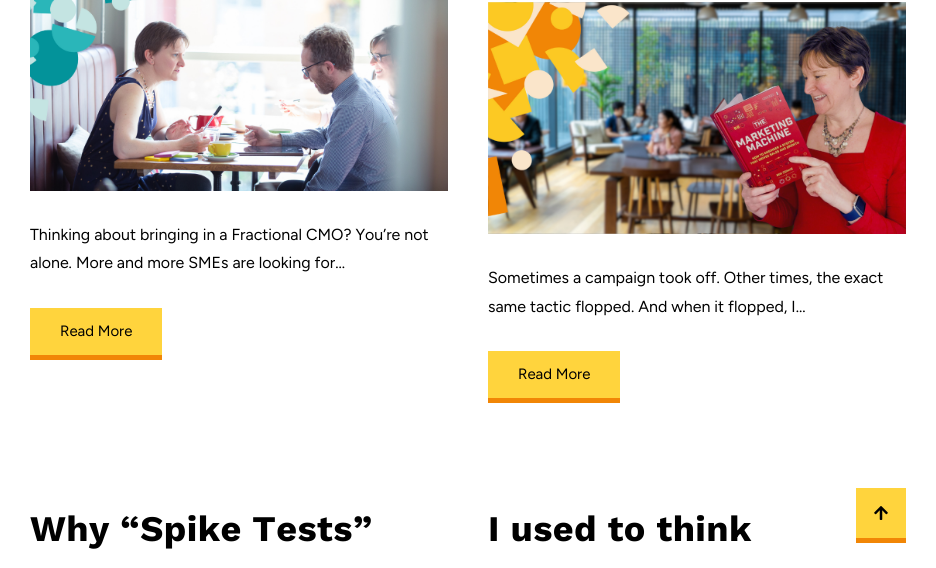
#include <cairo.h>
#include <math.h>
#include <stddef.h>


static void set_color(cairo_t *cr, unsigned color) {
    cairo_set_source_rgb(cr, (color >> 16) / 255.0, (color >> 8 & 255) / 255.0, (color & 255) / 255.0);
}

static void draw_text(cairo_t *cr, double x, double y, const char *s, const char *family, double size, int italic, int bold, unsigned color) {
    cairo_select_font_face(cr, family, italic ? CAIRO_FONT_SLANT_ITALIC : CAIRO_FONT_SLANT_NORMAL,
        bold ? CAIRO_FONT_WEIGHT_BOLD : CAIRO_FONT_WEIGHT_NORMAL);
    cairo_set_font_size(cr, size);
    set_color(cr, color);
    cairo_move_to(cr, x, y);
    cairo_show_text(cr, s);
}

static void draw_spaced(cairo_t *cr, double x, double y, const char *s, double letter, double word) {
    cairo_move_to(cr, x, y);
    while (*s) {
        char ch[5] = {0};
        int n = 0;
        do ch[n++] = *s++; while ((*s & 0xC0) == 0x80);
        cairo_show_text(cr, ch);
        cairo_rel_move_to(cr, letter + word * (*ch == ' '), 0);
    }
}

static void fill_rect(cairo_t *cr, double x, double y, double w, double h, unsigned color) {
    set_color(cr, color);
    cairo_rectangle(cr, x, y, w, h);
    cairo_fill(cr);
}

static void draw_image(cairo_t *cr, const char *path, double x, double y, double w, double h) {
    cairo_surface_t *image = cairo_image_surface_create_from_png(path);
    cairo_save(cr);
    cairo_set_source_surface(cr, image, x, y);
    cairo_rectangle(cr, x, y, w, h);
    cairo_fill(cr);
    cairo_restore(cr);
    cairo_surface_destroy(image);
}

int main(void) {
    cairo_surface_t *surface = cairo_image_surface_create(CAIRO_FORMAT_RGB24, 936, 568);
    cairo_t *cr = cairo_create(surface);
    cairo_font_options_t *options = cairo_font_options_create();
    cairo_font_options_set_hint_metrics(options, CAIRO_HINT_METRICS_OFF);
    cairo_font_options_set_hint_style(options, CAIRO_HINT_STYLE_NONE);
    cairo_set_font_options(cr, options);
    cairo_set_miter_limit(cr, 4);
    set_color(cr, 0xFFFFFF);
    cairo_paint(cr);
    draw_image(cr, "assets/img1.png", 30, 0, 418, 191);
    draw_text(cr, 30, 240, "Thinking about bringing in a Fractional CMO? You’re not", "Figtree Light", 16, 0, 0, 0x000000);
    draw_text(cr, 30, 268, "alone. More and more SMEs are looking for...", "Figtree Light", 16, 0, 0, 0x000000);
    fill_rect(cr, 30, 355, 132, 5, 0xF18606);
    fill_rect(cr, 30, 308, 132, 47, 0xFFD43D);
    draw_text(cr, 60, 336, "Read More", "Figtree Light", 15, 0, 0, 0x000000);
    draw_image(cr, "assets/img2.png", 488, 2, 418, 232);
    draw_text(cr, 488, 283, "Sometimes a campaign took off. Other times, the exact", "Figtree Light", 16, 0, 0, 0x000000);
    draw_text(cr, 488, 312, "same tactic flopped. And when it flopped, I...", "Figtree Light", 16, 0, 0, 0x000000);
    fill_rect(cr, 488, 398, 132, 5, 0xF18606);
    fill_rect(cr, 488, 351, 132, 47, 0xFFD43D);
    draw_text(cr, 518, 379, "Read More", "Figtree Light", 15, 0, 0, 0x000000);
    cairo_select_font_face(cr, "Work Sans", CAIRO_FONT_SLANT_NORMAL, CAIRO_FONT_WEIGHT_BOLD);
    cairo_set_font_size(cr, 36);
    draw_spaced(cr, 30, 541, "Why “Spike Tests”", 0.4, 0);
    draw_spaced(cr, 488, 541, "I used to think", 0.4, 0);
    fill_rect(cr, 856, 538, 50, 5, 0xF18606);
    fill_rect(cr, 856, 488, 50, 50, 0xFFD43D);
    draw_image(cr, "assets/img3.png", 874, 506, 14, 14);
    cairo_surface_write_to_png(surface, "output.png");
    cairo_font_options_destroy(options);
    cairo_destroy(cr);
    cairo_surface_destroy(surface);
    return 0;
}
